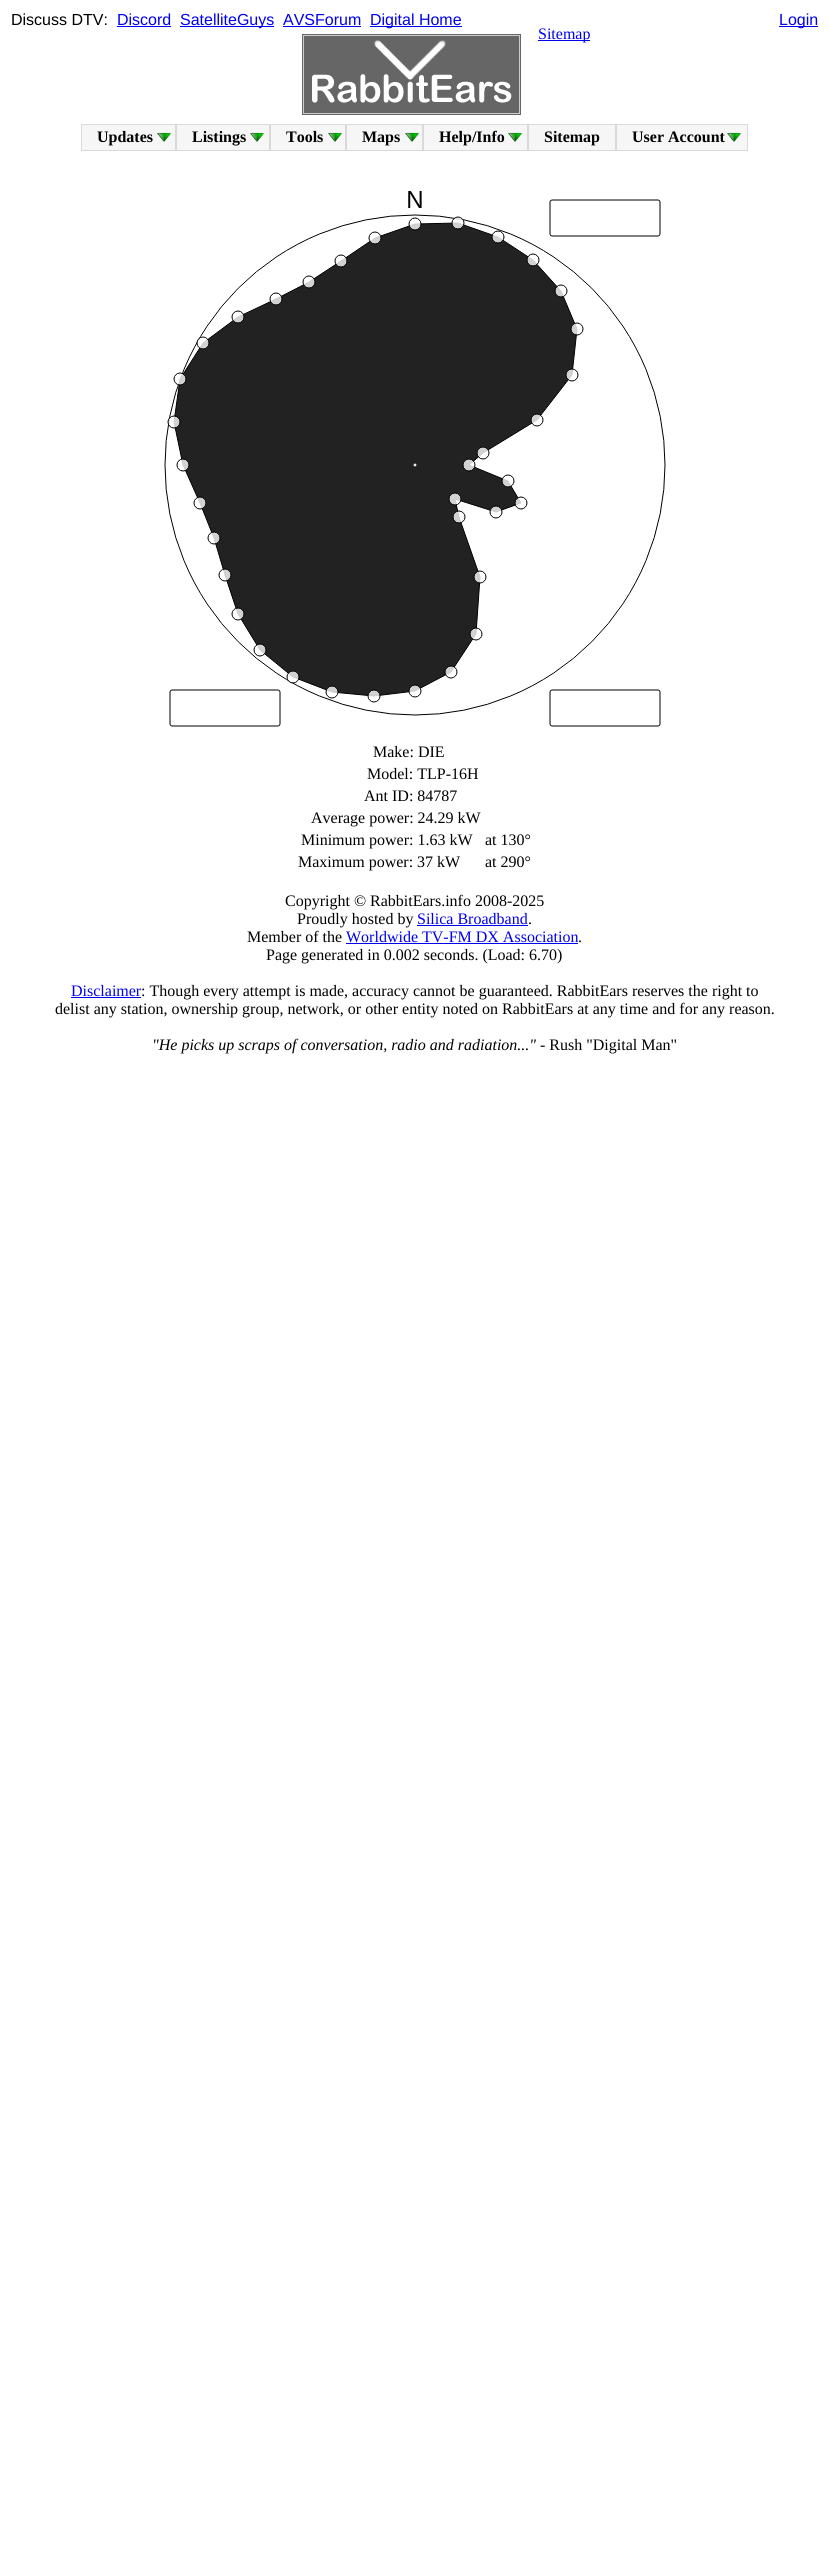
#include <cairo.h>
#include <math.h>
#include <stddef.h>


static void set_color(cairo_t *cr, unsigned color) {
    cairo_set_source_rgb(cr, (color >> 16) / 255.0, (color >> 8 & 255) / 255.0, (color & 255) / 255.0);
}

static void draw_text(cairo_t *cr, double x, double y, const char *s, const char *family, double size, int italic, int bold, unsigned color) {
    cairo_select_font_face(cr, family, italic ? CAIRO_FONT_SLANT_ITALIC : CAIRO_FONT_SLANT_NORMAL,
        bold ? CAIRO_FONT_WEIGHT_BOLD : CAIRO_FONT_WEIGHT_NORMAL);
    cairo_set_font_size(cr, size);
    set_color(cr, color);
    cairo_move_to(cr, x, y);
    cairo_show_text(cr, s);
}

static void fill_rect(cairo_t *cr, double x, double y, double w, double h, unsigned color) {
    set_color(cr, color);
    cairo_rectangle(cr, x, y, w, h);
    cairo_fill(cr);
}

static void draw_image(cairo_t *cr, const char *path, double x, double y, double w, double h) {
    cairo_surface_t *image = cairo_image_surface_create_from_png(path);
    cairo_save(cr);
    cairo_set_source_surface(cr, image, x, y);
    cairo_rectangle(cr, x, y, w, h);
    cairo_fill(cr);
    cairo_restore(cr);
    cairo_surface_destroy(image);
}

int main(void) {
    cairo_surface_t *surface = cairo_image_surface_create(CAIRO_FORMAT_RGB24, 829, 2569);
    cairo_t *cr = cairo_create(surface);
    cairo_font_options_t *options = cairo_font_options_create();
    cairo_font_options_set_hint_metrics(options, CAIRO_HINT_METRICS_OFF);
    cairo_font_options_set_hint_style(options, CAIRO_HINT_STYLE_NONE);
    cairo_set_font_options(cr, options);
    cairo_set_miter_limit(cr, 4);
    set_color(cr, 0xFFFFFF);
    cairo_paint(cr);
    draw_text(cr, 11, 25, "Discuss DTV:", "Liberation Sans", 16, 0, 0, 0x000000);
    draw_text(cr, 117, 25, "Discord", "Liberation Sans", 16, 0, 0, 0x0000EE);
    fill_rect(cr, 117, 26, 54, 1, 0x0000EE);
    fill_rect(cr, 180, 26, 94, 1, 0x0000EE);
    draw_text(cr, 180, 25, "SatelliteGuys", "Liberation Sans", 16, 0, 0, 0x0000EE);
    draw_text(cr, 283, 25, "AVSForum", "Liberation Sans", 16, 0, 0, 0x0000EE);
    fill_rect(cr, 283, 26, 78, 1, 0x0000EE);
    fill_rect(cr, 370, 26, 92, 1, 0x0000EE);
    draw_text(cr, 370, 25, "Digital Home", "Liberation Sans", 16, 0, 0, 0x0000EE);
    fill_rect(cr, 779, 26, 39, 1, 0x0000EE);
    draw_text(cr, 779, 25, "Login", "Liberation Sans", 16, 0, 0, 0x0000EE);
    cairo_rectangle(cr, 303.5, 35.5, 216, 78);
    set_color(cr, 0xCCCCCC);
    cairo_set_line_width(cr, 1);
    cairo_stroke(cr);
    draw_image(cr, "assets/img1.png", 304, 36, 215, 77);
    cairo_rectangle(cr, 302.5, 34.5, 218, 80);
    set_color(cr, 0x666666);
    cairo_stroke(cr);
    fill_rect(cr, 538, 40, 52, 1, 0x0000EE);
    draw_text(cr, 538, 39, "Sitemap", "Liberation Serif", 16, 0, 0, 0x0000EE);
    fill_rect(cr, 82, 125, 93, 25, 0xF6F6F6);
    draw_image(cr, "assets/img2.png", 157, 132, 14, 10);
    cairo_rectangle(cr, 81.5, 124.5, 94, 26);
    set_color(cr, 0xD9D9D9);
    cairo_stroke(cr);
    draw_text(cr, 97, 142, "Updates", "Liberation Serif", 16, 0, 1, 0x000000);
    fill_rect(cr, 177, 125, 92, 25, 0xF6F6F6);
    draw_image(cr, "assets/img2.png", 250, 132, 14, 10);
    cairo_rectangle(cr, 176.5, 124.5, 93, 26);
    set_color(cr, 0xD9D9D9);
    cairo_stroke(cr);
    draw_text(cr, 192, 142, "Listings", "Liberation Serif", 16, 0, 1, 0x000000);
    fill_rect(cr, 271, 125, 74, 25, 0xF6F6F6);
    draw_image(cr, "assets/img2.png", 328, 132, 14, 10);
    cairo_rectangle(cr, 270.5, 124.5, 75, 26);
    set_color(cr, 0xD9D9D9);
    cairo_stroke(cr);
    draw_text(cr, 286, 142, "Tools", "Liberation Serif", 16, 0, 1, 0x000000);
    fill_rect(cr, 347, 125, 75, 25, 0xF6F6F6);
    draw_image(cr, "assets/img2.png", 405, 132, 14, 10);
    cairo_rectangle(cr, 346.5, 124.5, 76, 26);
    set_color(cr, 0xD9D9D9);
    cairo_stroke(cr);
    draw_text(cr, 362, 142, "Maps", "Liberation Serif", 16, 0, 1, 0x000000);
    fill_rect(cr, 424, 125, 103, 25, 0xF6F6F6);
    draw_image(cr, "assets/img2.png", 508, 132, 14, 10);
    cairo_rectangle(cr, 423.5, 124.5, 104, 26);
    set_color(cr, 0xD9D9D9);
    cairo_stroke(cr);
    draw_text(cr, 439, 142, "Help/Info", "Liberation Serif", 16, 0, 1, 0x000000);
    set_color(cr, 0xF6F6F6);
    cairo_rectangle(cr, 528.5, 124.5, 87, 26);
    cairo_fill_preserve(cr);
    set_color(cr, 0xD9D9D9);
    cairo_stroke(cr);
    draw_text(cr, 544, 142, "Sitemap", "Liberation Serif", 16, 0, 1, 0x000000);
    fill_rect(cr, 617, 125, 130, 25, 0xF6F6F6);
    draw_image(cr, "assets/img2.png", 727, 132, 14, 10);
    cairo_rectangle(cr, 616.5, 124.5, 131, 26);
    set_color(cr, 0xD9D9D9);
    cairo_stroke(cr);
    draw_text(cr, 632, 142, "User Account", "Liberation Serif", 16, 0, 1, 0x000000);
    draw_image(cr, "assets/img3.png", 164, 191, 502, 536);
    draw_text(cr, 373, 757, "Make: DIE", "Liberation Serif", 16, 0, 0, 0x000000);
    draw_text(cr, 367, 779, "Model: TLP-16H", "Liberation Serif", 16, 0, 0, 0x000000);
    draw_text(cr, 364, 801, "Ant ID: 84787", "Liberation Serif", 16, 0, 0, 0x000000);
    draw_text(cr, 311, 823, "Average power: 24.29 kW", "Liberation Serif", 16, 0, 0, 0x000000);
    draw_text(cr, 301, 845, "Minimum power: 1.63 kW", "Liberation Serif", 16, 0, 0, 0x000000);
    draw_text(cr, 485, 845, "at 130°", "Liberation Serif", 16, 0, 0, 0x000000);
    draw_text(cr, 298, 867, "Maximum power: 37 kW", "Liberation Serif", 16, 0, 0, 0x000000);
    draw_text(cr, 485, 867, "at 290°", "Liberation Serif", 16, 0, 0, 0x000000);
    draw_text(cr, 285, 906, "Copyright © RabbitEars.info 2008-2025", "Liberation Serif", 16, 0, 0, 0x000000);
    draw_text(cr, 297, 924, "Proudly hosted by", "Liberation Serif", 16, 0, 0, 0x000000);
    draw_text(cr, 417, 924, "Silica Broadband", "Liberation Serif", 16, 0, 0, 0x0000EE);
    fill_rect(cr, 417, 925, 111, 1, 0x0000EE);
    draw_text(cr, 528, 924, ".", "Liberation Serif", 16, 0, 0, 0x000000);
    draw_text(cr, 247, 942, "Member of the", "Liberation Serif", 16, 0, 0, 0x000000);
    draw_text(cr, 346, 942, "Worldwide TV-FM DX Association", "Liberation Serif", 16, 0, 0, 0x0000EE);
    fill_rect(cr, 346, 943, 232, 1, 0x0000EE);
    draw_text(cr, 578, 942, ".", "Liberation Serif", 16, 0, 0, 0x000000);
    draw_text(cr, 266, 960, "Page generated in 0.002 seconds. (Load: 6.70)", "Liberation Serif", 16, 0, 0, 0x000000);
    draw_text(cr, 71, 996, "Disclaimer", "Liberation Serif", 16, 0, 0, 0x0000EE);
    fill_rect(cr, 71, 997, 70, 1, 0x0000EE);
    draw_text(cr, 141, 996, ": Though every attempt is made, accuracy cannot be guaranteed. RabbitEars reserves the right to", "Liberation Serif", 16, 0, 0, 0x000000);
    draw_text(cr, 55, 1014, "delist any station, ownership group, network, or other entity noted on RabbitEars at any time and for any reason.", "Liberation Serif", 16, 0, 0, 0x000000);
    draw_text(cr, 152, 1050, "\"He picks up scraps of conversation, radio and radiation...\"", "Liberation Serif", 16, 1, 0, 0x000000);
    draw_text(cr, 540, 1050, "- Rush \"Digital Man\"", "Liberation Serif", 16, 0, 0, 0x000000);
    cairo_surface_write_to_png(surface, "output.png");
    cairo_font_options_destroy(options);
    cairo_destroy(cr);
    cairo_surface_destroy(surface);
    return 0;
}
